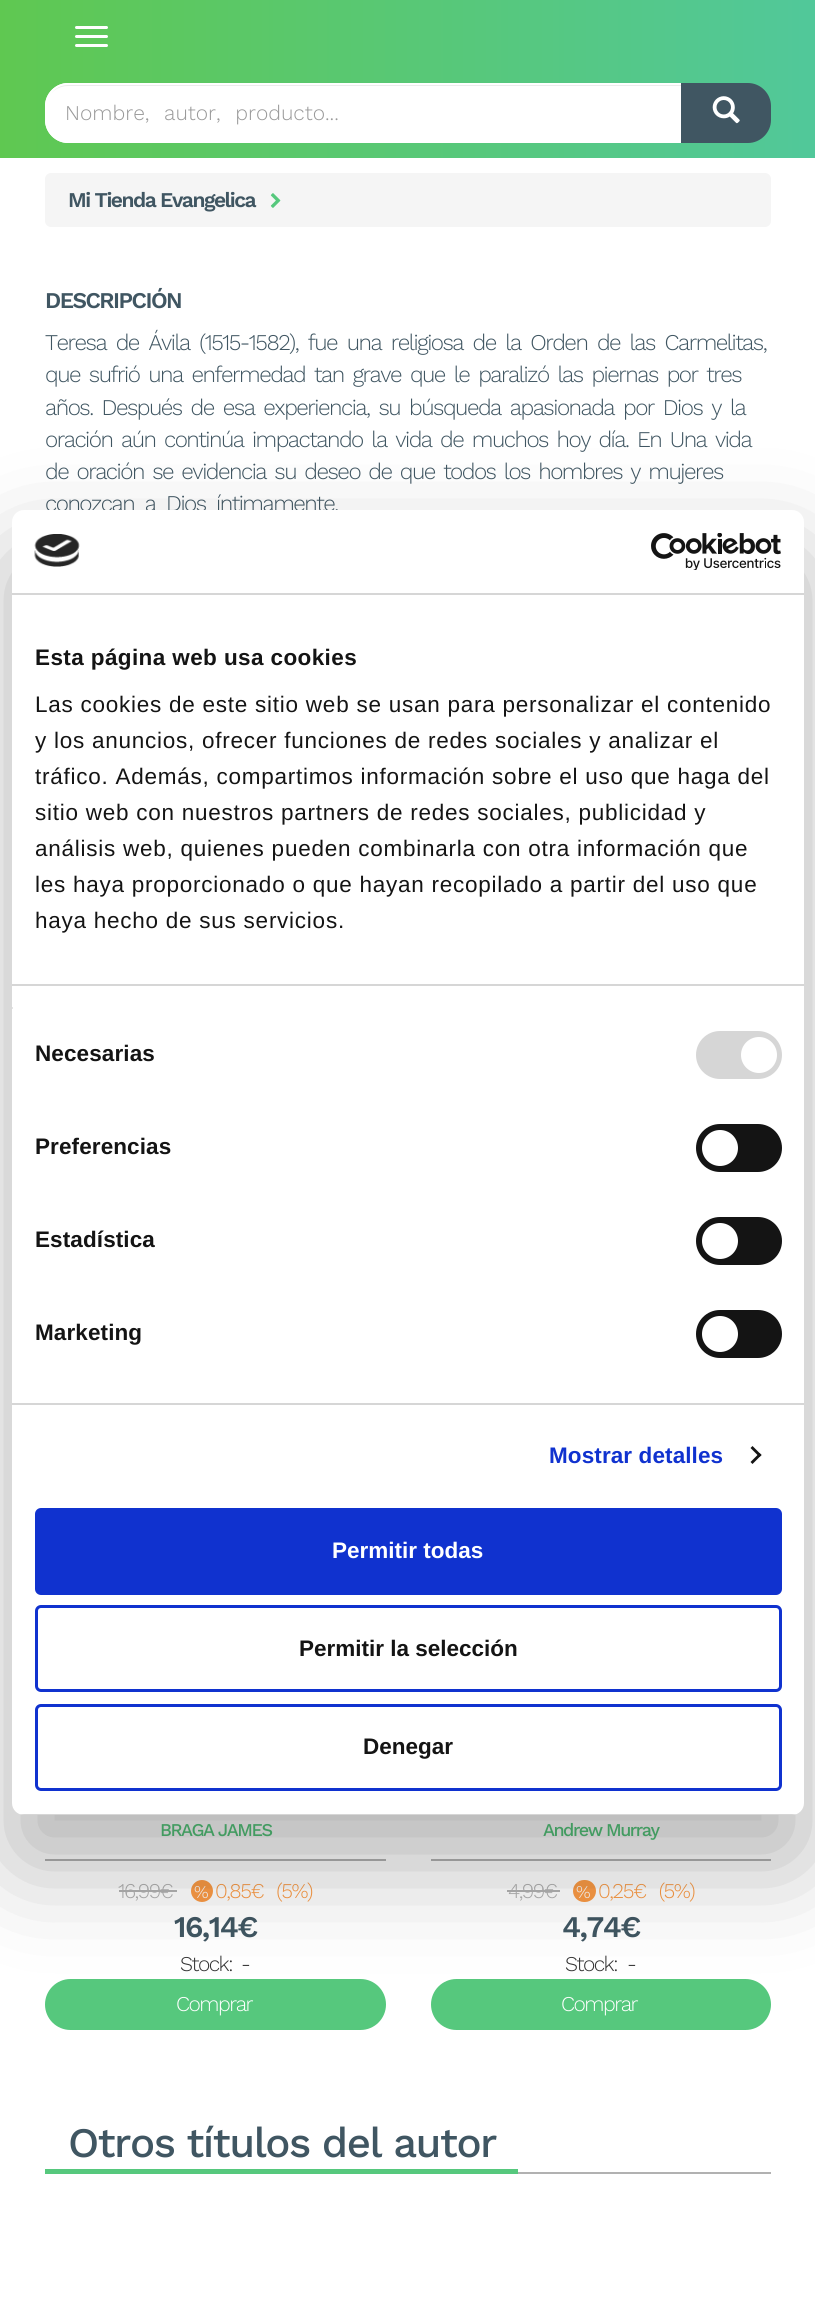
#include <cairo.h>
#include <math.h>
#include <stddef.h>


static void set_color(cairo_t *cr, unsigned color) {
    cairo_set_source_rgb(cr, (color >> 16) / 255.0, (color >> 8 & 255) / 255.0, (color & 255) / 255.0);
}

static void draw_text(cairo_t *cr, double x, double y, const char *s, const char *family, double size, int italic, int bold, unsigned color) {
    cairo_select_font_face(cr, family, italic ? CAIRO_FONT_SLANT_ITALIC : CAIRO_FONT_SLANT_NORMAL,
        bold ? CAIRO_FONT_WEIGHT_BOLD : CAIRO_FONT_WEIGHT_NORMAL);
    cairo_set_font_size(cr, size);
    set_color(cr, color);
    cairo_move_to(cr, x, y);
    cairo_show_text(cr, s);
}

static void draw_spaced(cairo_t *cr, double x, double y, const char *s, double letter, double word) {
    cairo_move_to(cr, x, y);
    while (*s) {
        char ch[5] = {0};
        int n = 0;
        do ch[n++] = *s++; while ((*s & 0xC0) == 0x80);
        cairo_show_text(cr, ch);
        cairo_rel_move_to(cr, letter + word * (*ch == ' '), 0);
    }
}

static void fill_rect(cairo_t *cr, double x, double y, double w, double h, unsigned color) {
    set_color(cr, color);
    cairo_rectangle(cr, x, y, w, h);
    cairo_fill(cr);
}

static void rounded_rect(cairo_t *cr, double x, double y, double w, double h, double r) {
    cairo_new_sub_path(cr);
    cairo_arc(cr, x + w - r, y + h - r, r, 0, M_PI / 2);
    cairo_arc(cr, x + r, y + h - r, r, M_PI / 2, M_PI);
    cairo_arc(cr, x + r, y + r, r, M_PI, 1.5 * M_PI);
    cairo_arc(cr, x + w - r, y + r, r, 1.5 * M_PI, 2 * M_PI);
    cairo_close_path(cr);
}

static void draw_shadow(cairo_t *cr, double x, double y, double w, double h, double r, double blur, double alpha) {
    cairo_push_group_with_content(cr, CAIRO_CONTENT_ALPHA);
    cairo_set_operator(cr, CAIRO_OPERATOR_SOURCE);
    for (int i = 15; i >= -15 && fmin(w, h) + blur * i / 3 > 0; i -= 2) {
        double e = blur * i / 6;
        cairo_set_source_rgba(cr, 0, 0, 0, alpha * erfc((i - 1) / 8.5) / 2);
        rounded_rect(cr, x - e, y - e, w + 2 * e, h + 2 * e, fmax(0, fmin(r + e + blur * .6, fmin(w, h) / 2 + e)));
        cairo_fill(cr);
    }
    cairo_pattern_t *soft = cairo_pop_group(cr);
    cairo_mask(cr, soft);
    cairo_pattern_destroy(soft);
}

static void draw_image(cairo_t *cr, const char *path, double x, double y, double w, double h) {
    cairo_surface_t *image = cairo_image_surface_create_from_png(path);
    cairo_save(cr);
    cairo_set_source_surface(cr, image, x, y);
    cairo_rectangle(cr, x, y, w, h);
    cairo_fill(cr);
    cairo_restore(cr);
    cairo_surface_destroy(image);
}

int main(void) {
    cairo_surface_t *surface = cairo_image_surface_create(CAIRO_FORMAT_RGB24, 815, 2323);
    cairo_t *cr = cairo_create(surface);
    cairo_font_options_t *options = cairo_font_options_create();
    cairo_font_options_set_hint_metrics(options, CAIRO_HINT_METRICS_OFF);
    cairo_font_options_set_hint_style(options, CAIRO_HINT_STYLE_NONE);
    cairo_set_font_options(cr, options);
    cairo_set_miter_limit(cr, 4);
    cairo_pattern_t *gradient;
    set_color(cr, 0xFFFFFF);
    cairo_paint(cr);
    gradient = cairo_pattern_create_linear(0, 79, 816, 79);
    cairo_pattern_add_color_stop_rgba(gradient, 0, 0.373, 0.784, 0.318, 1);
    cairo_pattern_add_color_stop_rgba(gradient, 1, 0.318, 0.784, 0.604, 1);
    cairo_set_source(cr, gradient);
    cairo_pattern_destroy(gradient);
    cairo_rectangle(cr, 0, 0, 815, 158);
    cairo_fill(cr);
    set_color(cr, 0xFFFFFF);
    rounded_rect(cr, 75, 26, 33, 3, 1.5);
    cairo_fill(cr);
    rounded_rect(cr, 75, 35, 33, 3, 1.5);
    cairo_fill(cr);
    rounded_rect(cr, 75, 44, 33, 3, 1.5);
    cairo_fill(cr);
    cairo_new_path(cr);
    cairo_move_to(cr, 68, 83);
    cairo_line_to(cr, 683, 83);
    cairo_line_to(cr, 683, 143);
    cairo_line_to(cr, 68, 143);
    cairo_curve_to(cr, 55.5, 143, 45, 132.5, 45, 120);
    cairo_line_to(cr, 45, 106);
    cairo_curve_to(cr, 45, 93.5, 55.5, 83, 68, 83);
    cairo_close_path(cr);
    cairo_fill(cr);
    set_color(cr, 0xECECEC);
    cairo_new_path(cr);
    cairo_move_to(cr, 68, 86);
    cairo_line_to(cr, 681, 86);
    cairo_line_to(cr, 681, 84);
    cairo_line_to(cr, 68, 84);
    cairo_curve_to(cr, 60, 84, 53, 89, 49, 96);
    cairo_curve_to(cr, 53, 90, 60, 86, 68, 86);
    cairo_close_path(cr);
    cairo_fill(cr);
    cairo_new_path(cr);
    cairo_move_to(cr, 68, 84);
    cairo_line_to(cr, 682, 84);
    cairo_line_to(cr, 682, 142);
    cairo_line_to(cr, 68, 142);
    cairo_curve_to(cr, 56, 142, 46, 132, 46, 120);
    cairo_line_to(cr, 46, 106);
    cairo_curve_to(cr, 46, 94, 56, 84, 68, 84);
    cairo_close_path(cr);
    set_color(cr, 0xFFFFFF);
    cairo_stroke(cr);
    cairo_select_font_face(cr, "Work Sans Light", CAIRO_FONT_SLANT_NORMAL, CAIRO_FONT_WEIGHT_NORMAL);
    cairo_set_font_size(cr, 21);
    set_color(cr, 0x999999);
    draw_spaced(cr, 65, 120, "Nombre, autor, producto...", 0, 8);
    set_color(cr, 0x405662);
    cairo_new_path(cr);
    cairo_move_to(cr, 681, 83);
    cairo_line_to(cr, 748, 83);
    cairo_curve_to(cr, 760.5, 83, 771, 93.5, 771, 106);
    cairo_line_to(cr, 771, 120);
    cairo_curve_to(cr, 771, 132.5, 760.5, 143, 748, 143);
    cairo_line_to(cr, 681, 143);
    cairo_close_path(cr);
    cairo_fill(cr);
    draw_image(cr, "assets/img1.png", 712, 96, 28, 28);
    set_color(cr, 0xF5F5F5);
    rounded_rect(cr, 45, 173, 726, 54, 6);
    cairo_fill(cr);
    cairo_select_font_face(cr, "Work Sans SemiBold", CAIRO_FONT_SLANT_NORMAL, CAIRO_FONT_WEIGHT_NORMAL);
    set_color(cr, 0x405662);
    draw_spaced(cr, 68, 207, "Mi Tienda Evangelica", -1.5, 0);
    draw_image(cr, "assets/img2.png", 270, 193, 11, 15);
    cairo_set_font_size(cr, 22.5);
    draw_spaced(cr, 45, 308, "DESCRIPCIÓN", -1.5, 0);
    cairo_select_font_face(cr, "Work Sans Light", CAIRO_FONT_SLANT_NORMAL, CAIRO_FONT_WEIGHT_NORMAL);
    draw_spaced(cr, 45, 350, "Teresa de Ávila (1515-1582), fue una religiosa de la Orden de las Carmelitas,", -1.5, 4);
    draw_spaced(cr, 45, 382, "que sufrió una enfermedad tan grave que le paralizó las piernas por tres", -1.5, 3.25);
    draw_spaced(cr, 45, 415, "años. Después de esa experiencia, su búsqueda apasionada por Dios y la", -1.5, 3.4);
    draw_spaced(cr, 45, 447, "oración aún continúa impactando la vida de muchos hoy día. En Una vida", -1.5, 3);
    draw_spaced(cr, 45, 479, "de oración se evidencia su deseo de que todos los hombres y mujeres", -1.5, 2.75);
    draw_spaced(cr, 45, 511, "conozcan a Dios íntimamente.", -1.5, 5);
    cairo_select_font_face(cr, "Work Sans Medium", CAIRO_FONT_SLANT_NORMAL, CAIRO_FONT_WEIGHT_NORMAL);
    cairo_set_font_size(cr, 18);
    set_color(cr, 0x56C87D);
    draw_spaced(cr, 160, 1836, "BRAGA JAMES", -1.5, 0);
    fill_rect(cr, 45, 1859, 341, 2, 0xB1B1B1);
    cairo_select_font_face(cr, "Work Sans Light", CAIRO_FONT_SLANT_NORMAL, CAIRO_FONT_WEIGHT_NORMAL);
    cairo_set_font_size(cr, 21);
    draw_spaced(cr, 118, 1898, "16,99€", -1.5, 0);
    fill_rect(cr, 119, 1890, 58, 2, 0xB1B1B1);
    set_color(cr, 0xFC9B45);
    cairo_new_path(cr);
    cairo_arc(cr, 202, 1891, 11, 0, 2 * M_PI);
    cairo_fill(cr);
    cairo_set_font_size(cr, 18);
    set_color(cr, 0xFFFFFF);
    draw_spaced(cr, 194, 1898, "%", -1.5, 0);
    cairo_set_font_size(cr, 21);
    set_color(cr, 0xFC9B45);
    draw_spaced(cr, 215, 1898, "0,85€ (5%)", -1.5, 8);
    cairo_select_font_face(cr, "Work Sans SemiBold", CAIRO_FONT_SLANT_NORMAL, CAIRO_FONT_WEIGHT_NORMAL);
    cairo_set_font_size(cr, 30);
    set_color(cr, 0x405662);
    draw_spaced(cr, 174, 1937, "16,14€", -1.5, 0);
    cairo_select_font_face(cr, "Work Sans Light", CAIRO_FONT_SLANT_NORMAL, CAIRO_FONT_WEIGHT_NORMAL);
    cairo_set_font_size(cr, 21);
    set_color(cr, 0x333333);
    draw_spaced(cr, 180, 1971, "Stock:", -1.5, 0);
    draw_spaced(cr, 241, 1971, "-", -1.5, 0);
    set_color(cr, 0x56C87D);
    rounded_rect(cr, 45, 1979, 341, 51, 25.5);
    cairo_fill(cr);
    set_color(cr, 0xFFFFFF);
    draw_spaced(cr, 176, 2011, "Comprar", -1.5, 0);
    cairo_select_font_face(cr, "Work Sans Medium", CAIRO_FONT_SLANT_NORMAL, CAIRO_FONT_WEIGHT_NORMAL);
    cairo_set_font_size(cr, 18);
    set_color(cr, 0x56C87D);
    draw_spaced(cr, 543, 1836, "Andrew Murray", -1.5, 0);
    fill_rect(cr, 431, 1859, 340, 2, 0xB1B1B1);
    cairo_select_font_face(cr, "Work Sans Light", CAIRO_FONT_SLANT_NORMAL, CAIRO_FONT_WEIGHT_NORMAL);
    cairo_set_font_size(cr, 21);
    draw_spaced(cr, 508, 1898, "4,99€", -1.5, 0);
    fill_rect(cr, 507, 1890, 53, 2, 0xB1B1B1);
    set_color(cr, 0xFC9B45);
    rounded_rect(cr, 573, 1880, 23, 22, 11);
    cairo_fill(cr);
    cairo_set_font_size(cr, 18);
    set_color(cr, 0xFFFFFF);
    draw_spaced(cr, 576, 1898, "%", -1.5, 0);
    cairo_set_font_size(cr, 21);
    set_color(cr, 0xFC9B45);
    draw_spaced(cr, 598, 1898, "0,25€ (5%)", -1.5, 8);
    cairo_select_font_face(cr, "Work Sans SemiBold", CAIRO_FONT_SLANT_NORMAL, CAIRO_FONT_WEIGHT_NORMAL);
    cairo_set_font_size(cr, 30);
    set_color(cr, 0x405662);
    draw_spaced(cr, 562, 1937, "4,74€", -1.5, 0);
    cairo_select_font_face(cr, "Work Sans Light", CAIRO_FONT_SLANT_NORMAL, CAIRO_FONT_WEIGHT_NORMAL);
    cairo_set_font_size(cr, 21);
    set_color(cr, 0x333333);
    draw_spaced(cr, 565, 1971, "Stock:", -1.5, 0);
    draw_spaced(cr, 627, 1971, "-", -1.5, 0);
    set_color(cr, 0x56C87D);
    rounded_rect(cr, 431, 1979, 340, 51, 25.5);
    cairo_fill(cr);
    set_color(cr, 0xFFFFFF);
    draw_spaced(cr, 561, 2011, "Comprar", -1.5, 0);
    fill_rect(cr, 45, 2169, 473, 5, 0x56C87D);
    cairo_select_font_face(cr, "Work Sans Medium", CAIRO_FONT_SLANT_NORMAL, CAIRO_FONT_WEIGHT_NORMAL);
    cairo_set_font_size(cr, 42);
    set_color(cr, 0x405662);
    draw_spaced(cr, 68, 2157, "Otros títulos del autor", -1.5, 0);
    fill_rect(cr, 518, 2172, 253, 2, 0xB1B1B1);
    set_color(cr, 0x000000);
    draw_shadow(cr, 12, 558, 792, 1305, 12, 51, 0.3);
    set_color(cr, 0xFFFFFF);
    rounded_rect(cr, 12, 510, 792, 1305, 12);
    cairo_fill(cr);
    fill_rect(cr, 12, 593, 792, 2, 0xD6D6D6);
    draw_image(cr, "assets/img3.png", 34, 534, 46, 33);
    draw_image(cr, "assets/img4.png", 651, 533, 130, 37);
    fill_rect(cr, 12, 984, 792, 2, 0xD6D6D6);
    cairo_select_font_face(cr, "Liberation Sans", CAIRO_FONT_SLANT_NORMAL, CAIRO_FONT_WEIGHT_BOLD);
    cairo_set_font_size(cr, 22.5);
    set_color(cr, 0x141414);
    draw_spaced(cr, 35, 665, "Esta página web usa cookies", 0.4, 0);
    cairo_select_font_face(cr, "Liberation Sans", CAIRO_FONT_SLANT_NORMAL, CAIRO_FONT_WEIGHT_NORMAL);
    draw_spaced(cr, 35, 712, "Las cookies de este sitio web se usan para personalizar el contenido", 0.75, 0);
    draw_spaced(cr, 35, 748, "y los anuncios, ofrecer funciones de redes sociales y analizar el", 0.75, 0);
    draw_spaced(cr, 35, 784, "tráfico. Además, compartimos información sobre el uso que haga del", 0.75, 0);
    draw_spaced(cr, 35, 820, "sitio web con nuestros partners de redes sociales, publicidad y", 0.75, 0);
    draw_spaced(cr, 35, 856, "análisis web, quienes pueden combinarla con otra información que", 0.75, 0);
    draw_spaced(cr, 35, 892, "les haya proporcionado o que hayan recopilado a partir del uso que", 0.75, 0);
    draw_spaced(cr, 35, 928, "haya hecho de sus servicios.", 0.75, 0);
    fill_rect(cr, 12, 1403, 792, 2, 0xD6D6D6);
    fill_rect(cr, 12, 1007, 1, 2, 0xE5E5E5);
    cairo_select_font_face(cr, "Liberation Sans", CAIRO_FONT_SLANT_NORMAL, CAIRO_FONT_WEIGHT_BOLD);
    set_color(cr, 0x141414);
    draw_spaced(cr, 35, 1061, "Necesarias", 0.1, 0);
    set_color(cr, 0xD6D6D6);
    rounded_rect(cr, 696, 1031, 86, 48, 24);
    cairo_fill(cr);
    set_color(cr, 0xFFFFFF);
    cairo_arc(cr, 759, 1055, 18, 0, 2 * M_PI);
    cairo_fill(cr);
    set_color(cr, 0x141414);
    draw_spaced(cr, 35, 1154, "Preferencias", 0.1, 0);
    rounded_rect(cr, 696, 1124, 86, 48, 24);
    cairo_fill(cr);
    set_color(cr, 0xFFFFFF);
    cairo_arc(cr, 720, 1148, 18, 0, 2 * M_PI);
    cairo_fill(cr);
    set_color(cr, 0x141414);
    draw_spaced(cr, 35, 1247, "Estadística", 0.1, 0);
    rounded_rect(cr, 696, 1217, 86, 48, 24);
    cairo_fill(cr);
    set_color(cr, 0xFFFFFF);
    cairo_arc(cr, 720, 1241, 18, 0, 2 * M_PI);
    cairo_fill(cr);
    set_color(cr, 0x141414);
    draw_spaced(cr, 35, 1340, "Marketing", 0.1, 0);
    rounded_rect(cr, 696, 1310, 86, 48, 24);
    cairo_fill(cr);
    set_color(cr, 0xFFFFFF);
    cairo_arc(cr, 720, 1334, 18, 0, 2 * M_PI);
    cairo_fill(cr);
    set_color(cr, 0x1032CF);
    draw_spaced(cr, 549, 1463, "Mostrar detalles", 0.1, 0);
    set_color(cr, 0x141414);
    cairo_new_path(cr);
    cairo_move_to(cr, 752.5, 1446);
    cairo_line_to(cr, 761.5, 1455);
    cairo_line_to(cr, 759.5, 1457);
    cairo_line_to(cr, 750.5, 1448);
    cairo_close_path(cr);
    cairo_fill(cr);
    cairo_new_path(cr);
    cairo_move_to(cr, 759.5, 1453);
    cairo_line_to(cr, 761.5, 1455);
    cairo_line_to(cr, 752.5, 1464);
    cairo_line_to(cr, 750.5, 1462);
    cairo_close_path(cr);
    cairo_fill(cr);
    cairo_save(cr);
    rounded_rect(cr, 12, 510, 792, 1305, 12);
    cairo_clip(cr);
    fill_rect(cr, 12, 1814, 792, 1, 0xD6D6D6);
    cairo_restore(cr);
    set_color(cr, 0x1032CF);
    rounded_rect(cr, 36.5, 1509.5, 744, 84, 4.5);
    cairo_fill_preserve(cr);
    cairo_set_line_width(cr, 3);
    cairo_stroke(cr);
    draw_text(cr, 332, 1558, "Permitir todas", "Liberation Sans", 22.5, 0, 1, 0xFFFFFF);
    rounded_rect(cr, 36.5, 1606.5, 744, 84, 4.5);
    set_color(cr, 0x1032CF);
    cairo_stroke(cr);
    draw_text(cr, 299, 1656, "Permitir la selección", "Liberation Sans", 22.5, 0, 1, 0x141414);
    rounded_rect(cr, 36.5, 1705.5, 744, 84, 4.5);
    set_color(cr, 0x1032CF);
    cairo_stroke(cr);
    draw_text(cr, 363, 1754, "Denegar", "Liberation Sans", 22.5, 0, 1, 0x141414);
    cairo_surface_write_to_png(surface, "output.png");
    cairo_font_options_destroy(options);
    cairo_destroy(cr);
    cairo_surface_destroy(surface);
    return 0;
}
